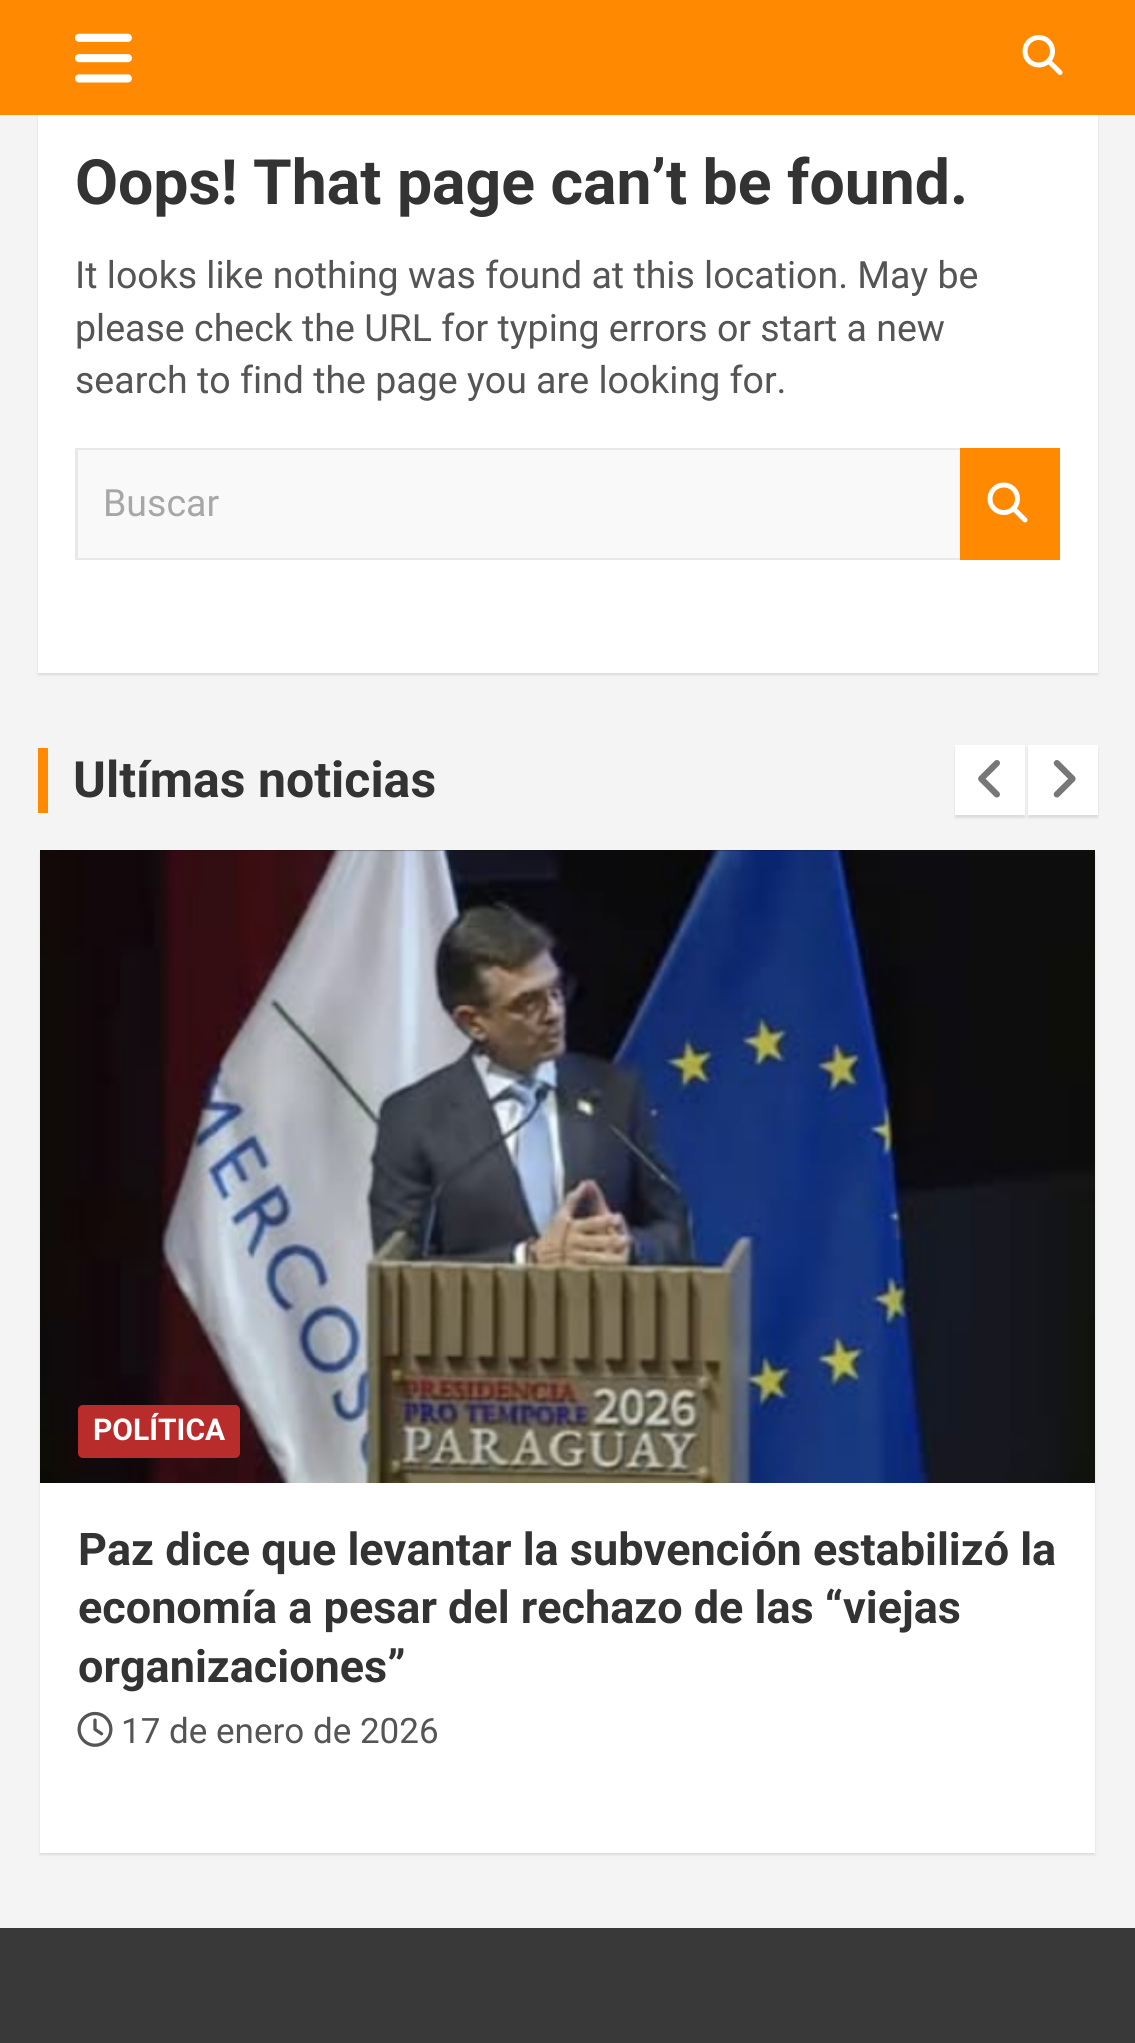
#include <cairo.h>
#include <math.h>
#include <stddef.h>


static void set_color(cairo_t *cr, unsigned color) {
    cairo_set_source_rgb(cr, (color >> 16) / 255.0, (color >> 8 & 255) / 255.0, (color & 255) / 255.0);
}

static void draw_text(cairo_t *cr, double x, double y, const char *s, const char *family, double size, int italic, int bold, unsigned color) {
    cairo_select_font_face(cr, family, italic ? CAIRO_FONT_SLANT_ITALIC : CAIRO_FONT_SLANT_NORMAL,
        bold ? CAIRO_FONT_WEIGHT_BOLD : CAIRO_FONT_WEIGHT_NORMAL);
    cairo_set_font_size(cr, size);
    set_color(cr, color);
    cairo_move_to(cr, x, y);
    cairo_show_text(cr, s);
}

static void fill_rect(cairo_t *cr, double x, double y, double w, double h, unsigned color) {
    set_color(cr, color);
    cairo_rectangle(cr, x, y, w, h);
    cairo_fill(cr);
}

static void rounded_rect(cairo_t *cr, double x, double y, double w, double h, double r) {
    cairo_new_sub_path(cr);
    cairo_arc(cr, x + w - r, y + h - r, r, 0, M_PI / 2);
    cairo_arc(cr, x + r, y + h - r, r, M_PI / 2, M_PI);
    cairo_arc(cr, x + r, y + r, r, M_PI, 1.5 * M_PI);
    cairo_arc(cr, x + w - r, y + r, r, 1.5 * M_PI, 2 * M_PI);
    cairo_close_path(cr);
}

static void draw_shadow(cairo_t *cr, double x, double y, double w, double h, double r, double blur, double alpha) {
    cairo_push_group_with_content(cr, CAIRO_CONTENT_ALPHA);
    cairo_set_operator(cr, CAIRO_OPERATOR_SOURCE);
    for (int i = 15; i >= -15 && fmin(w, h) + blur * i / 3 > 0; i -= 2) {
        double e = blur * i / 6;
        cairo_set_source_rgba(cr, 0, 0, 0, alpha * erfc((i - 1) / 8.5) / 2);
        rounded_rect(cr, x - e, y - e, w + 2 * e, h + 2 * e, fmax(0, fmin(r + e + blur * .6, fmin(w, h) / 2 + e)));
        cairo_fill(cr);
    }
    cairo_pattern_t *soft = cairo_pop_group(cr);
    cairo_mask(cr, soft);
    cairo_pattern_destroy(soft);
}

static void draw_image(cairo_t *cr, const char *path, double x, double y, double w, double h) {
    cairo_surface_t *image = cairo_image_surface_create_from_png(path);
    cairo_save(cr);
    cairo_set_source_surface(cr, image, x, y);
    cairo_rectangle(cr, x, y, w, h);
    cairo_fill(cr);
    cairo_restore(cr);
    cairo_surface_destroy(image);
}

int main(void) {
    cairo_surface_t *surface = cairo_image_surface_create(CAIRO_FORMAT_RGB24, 1135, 2043);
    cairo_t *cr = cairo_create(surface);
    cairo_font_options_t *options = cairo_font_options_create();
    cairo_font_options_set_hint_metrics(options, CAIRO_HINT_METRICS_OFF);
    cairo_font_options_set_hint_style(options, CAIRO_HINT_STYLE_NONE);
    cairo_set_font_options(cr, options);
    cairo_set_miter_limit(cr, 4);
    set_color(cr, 0xF4F4F4);
    cairo_paint(cr);
    set_color(cr, 0x000000);
    draw_shadow(cr, 38, 110, 1060, 565, 0, 1, 0.1);
    fill_rect(cr, 0, 0, 1135, 115, 0xFF8900);
    draw_image(cr, "assets/img1.png", 75, 33, 57, 50);
    draw_image(cr, "assets/img2.png", 1022, 35, 41, 40);
    fill_rect(cr, 38, 115, 1060, 558, 0xFFFFFF);
    draw_text(cr, 75, 204, "Oops! That page can’t be found.", "Roboto", 62.5, 0, 1, 0x333333);
    draw_text(cr, 75, 288, "It looks like nothing was found at this location. May be", "Roboto", 37.5, 0, 0, 0x555555);
    draw_text(cr, 75, 341, "please check the URL for typing errors or start a new", "Roboto", 37.5, 0, 0, 0x555555);
    draw_text(cr, 75, 393, "search to find the page you are looking for.", "Roboto", 37.5, 0, 0, 0x555555);
    fill_rect(cr, 78, 450, 882, 108, 0xF9F9F9);
    set_color(cr, 0xE8E8E8);
    cairo_new_path(cr);
    cairo_move_to(cr, 75, 448);
    cairo_line_to(cr, 960, 448);
    cairo_line_to(cr, 960, 450);
    cairo_line_to(cr, 78, 450);
    cairo_close_path(cr);
    cairo_fill(cr);
    cairo_new_path(cr);
    cairo_move_to(cr, 960, 560);
    cairo_line_to(cr, 75, 560);
    cairo_line_to(cr, 78, 558);
    cairo_line_to(cr, 960, 558);
    cairo_close_path(cr);
    cairo_fill(cr);
    cairo_set_source_rgba(cr, 0, 0, 0, 0.09);
    cairo_new_path(cr);
    cairo_move_to(cr, 75, 560);
    cairo_line_to(cr, 75, 448);
    cairo_line_to(cr, 78, 450);
    cairo_line_to(cr, 78, 558);
    cairo_close_path(cr);
    cairo_fill(cr);
    draw_text(cr, 103, 516, "Buscar", "Roboto", 37.5, 0, 0, 0xA7A7A7);
    fill_rect(cr, 960, 448, 100, 112, 0xFF8900);
    draw_image(cr, "assets/img3.png", 987, 482, 41, 41);
    fill_rect(cr, 38, 748, 10, 65, 0xFF8900);
    draw_text(cr, 73, 797, "Ultímas noticias", "Roboto", 50, 0, 1, 0x333333);
    set_color(cr, 0x000000);
    draw_shadow(cr, 955, 748, 70, 70, 0, 1, 0.1);
    fill_rect(cr, 955, 745, 70, 70, 0xFFFFFF);
    draw_image(cr, "assets/img4.png", 978, 760, 22, 38);
    set_color(cr, 0x000000);
    draw_shadow(cr, 1028, 748, 70, 70, 0, 1, 0.1);
    fill_rect(cr, 1028, 745, 70, 70, 0xFFFFFF);
    draw_image(cr, "assets/img5.png", 1053, 760, 23, 38);
    set_color(cr, 0x000000);
    draw_shadow(cr, 40, 853, 1055, 1002, 0, 1, 0.1);
    fill_rect(cr, 40, 1483, 1055, 370, 0xFFFFFF);
    draw_image(cr, "assets/img6.png", 40, 850, 1055, 633);
    set_color(cr, 0xB82D2C);
    rounded_rect(cr, 78, 1405, 162, 53, 5);
    cairo_fill(cr);
    draw_text(cr, 93, 1440, "POLÍTICA", "Roboto", 30, 0, 1, 0xFFFFFF);
    draw_text(cr, 78, 1565, "Paz dice que levantar la subvención estabilizó la", "Roboto", 45, 0, 1, 0x333333);
    draw_text(cr, 78, 1623, "economía a pesar del rechazo de las “viejas", "Roboto", 45, 0, 1, 0x333333);
    draw_text(cr, 78, 1682, "organizaciones”", "Roboto", 45, 0, 1, 0x333333);
    draw_image(cr, "assets/img7.png", 77, 1711, 36, 36);
    draw_text(cr, 121, 1743, "17 de enero de 2026", "Roboto", 35, 0, 0, 0x555555);
    fill_rect(cr, 0, 1928, 1135, 115, 0x393939);
    cairo_surface_write_to_png(surface, "output.png");
    cairo_font_options_destroy(options);
    cairo_destroy(cr);
    cairo_surface_destroy(surface);
    return 0;
}
